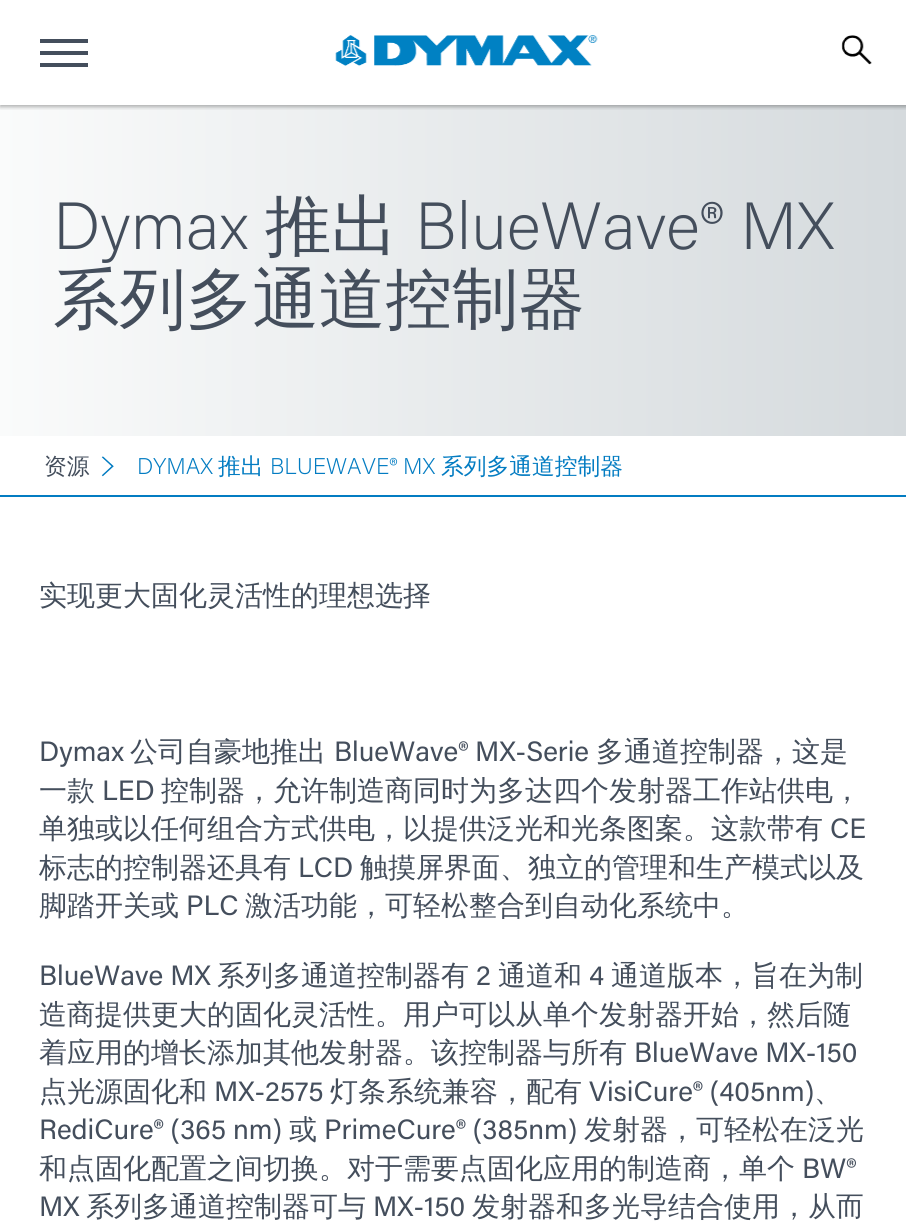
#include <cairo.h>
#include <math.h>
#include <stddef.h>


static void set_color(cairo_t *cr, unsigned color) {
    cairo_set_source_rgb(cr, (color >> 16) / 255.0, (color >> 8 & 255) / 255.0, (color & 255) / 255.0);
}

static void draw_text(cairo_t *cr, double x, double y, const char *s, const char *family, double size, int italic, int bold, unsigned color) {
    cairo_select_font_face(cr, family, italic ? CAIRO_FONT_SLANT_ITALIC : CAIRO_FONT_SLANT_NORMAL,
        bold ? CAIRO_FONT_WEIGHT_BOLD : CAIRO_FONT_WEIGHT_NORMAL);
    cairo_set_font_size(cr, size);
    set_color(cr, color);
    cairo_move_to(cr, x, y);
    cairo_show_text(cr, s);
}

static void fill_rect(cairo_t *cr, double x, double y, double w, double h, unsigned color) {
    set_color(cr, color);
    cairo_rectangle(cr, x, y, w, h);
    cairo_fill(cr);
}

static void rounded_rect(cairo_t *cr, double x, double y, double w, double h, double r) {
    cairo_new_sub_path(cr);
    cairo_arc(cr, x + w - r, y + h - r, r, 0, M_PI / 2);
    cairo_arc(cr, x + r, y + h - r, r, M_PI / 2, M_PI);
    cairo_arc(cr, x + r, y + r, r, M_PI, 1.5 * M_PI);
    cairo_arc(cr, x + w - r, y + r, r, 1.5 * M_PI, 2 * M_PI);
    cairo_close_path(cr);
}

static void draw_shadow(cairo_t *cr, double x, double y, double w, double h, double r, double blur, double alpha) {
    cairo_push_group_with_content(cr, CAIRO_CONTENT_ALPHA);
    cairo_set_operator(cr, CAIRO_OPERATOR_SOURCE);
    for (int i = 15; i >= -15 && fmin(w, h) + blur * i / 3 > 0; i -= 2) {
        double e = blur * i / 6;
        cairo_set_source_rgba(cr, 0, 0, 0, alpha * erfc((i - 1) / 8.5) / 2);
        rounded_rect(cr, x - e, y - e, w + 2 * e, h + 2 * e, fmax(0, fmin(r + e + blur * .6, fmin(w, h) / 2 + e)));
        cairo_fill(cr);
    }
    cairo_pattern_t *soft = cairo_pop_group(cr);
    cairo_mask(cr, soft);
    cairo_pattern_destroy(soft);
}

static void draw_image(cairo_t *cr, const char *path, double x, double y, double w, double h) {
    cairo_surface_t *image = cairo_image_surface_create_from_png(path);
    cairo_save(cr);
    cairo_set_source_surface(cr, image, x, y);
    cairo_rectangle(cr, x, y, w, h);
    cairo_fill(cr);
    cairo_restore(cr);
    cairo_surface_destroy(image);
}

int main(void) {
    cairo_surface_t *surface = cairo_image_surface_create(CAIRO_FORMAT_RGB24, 906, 1226);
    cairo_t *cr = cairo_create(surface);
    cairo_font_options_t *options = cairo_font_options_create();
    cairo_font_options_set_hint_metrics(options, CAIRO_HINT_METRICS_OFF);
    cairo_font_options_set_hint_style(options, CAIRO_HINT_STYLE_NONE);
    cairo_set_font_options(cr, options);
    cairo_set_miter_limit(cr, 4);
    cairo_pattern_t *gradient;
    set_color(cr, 0xFFFFFF);
    cairo_paint(cr);
    gradient = cairo_pattern_create_linear(0, 270, 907, 270);
    cairo_pattern_add_color_stop_rgba(gradient, 0, 0.98, 0.984, 0.984, 1);
    cairo_pattern_add_color_stop_rgba(gradient, 1, 0.835, 0.855, 0.867, 1);
    cairo_set_source(cr, gradient);
    cairo_pattern_destroy(gradient);
    cairo_rectangle(cr, 0, 105, 906, 331);
    cairo_fill(cr);
    cairo_save(cr);
    cairo_rectangle(cr, 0, 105, 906, 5);
    cairo_clip(cr);
    set_color(cr, 0x000000);
    draw_shadow(cr, 0, 2, 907, 105, 0, 2, 0.3);
    cairo_restore(cr);
    fill_rect(cr, 40, 39, 48, 4, 0x444E5C);
    fill_rect(cr, 40, 51, 48, 4, 0x444E5C);
    fill_rect(cr, 40, 63, 48, 4, 0x444E5C);
    draw_image(cr, "assets/img1.png", 335, 35, 263, 31);
    draw_image(cr, "assets/img2.png", 841, 35, 31, 30);
    draw_text(cr, 53, 249, "Dymax", "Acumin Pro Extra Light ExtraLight", 66.5, 0, 0, 0x444E5C);
    draw_text(cr, 265, 249, "推出", "WenQuanYi Zen Hei Medium", 66.5, 0, 0, 0x444E5C);
    draw_text(cr, 415, 249, "BlueWave® MX", "Acumin Pro Extra Light ExtraLight", 66.5, 0, 0, 0x444E5C);
    draw_text(cr, 53, 322, "系列多通道控制器", "WenQuanYi Zen Hei Medium", 66.5, 0, 0, 0x444E5C);
    fill_rect(cr, 0, 495, 906, 2, 0x037CC2);
    draw_text(cr, 44, 474, "资源", "WenQuanYi Zen Hei Medium", 22.75, 0, 0, 0x444E5C);
    draw_image(cr, "assets/img3.png", 101, 456, 13, 21);
    draw_text(cr, 137, 474, "DYMAX", "Acumin Pro Extra Light ExtraLight", 22.75, 0, 0, 0x037CC2);
    draw_text(cr, 218, 474, "推出", "WenQuanYi Zen Hei Medium", 22.75, 0, 0, 0x037CC2);
    draw_text(cr, 270, 474, "BLUEWAVE® MX", "Acumin Pro Extra Light ExtraLight", 22.75, 0, 0, 0x037CC2);
    draw_text(cr, 441, 474, "系列多通道控制器", "WenQuanYi Zen Hei Medium", 22.75, 0, 0, 0x037CC2);
    draw_text(cr, 39, 605, "实现更大固化灵活性的理想选择", "WenQuanYi Zen Hei Medium", 28, 0, 0, 0x444E5C);
    draw_text(cr, 39, 761, "Dymax", "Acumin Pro", 28, 0, 0, 0x444E5C);
    draw_text(cr, 130, 761, "公司自豪地推出", "WenQuanYi Zen Hei Medium", 28, 0, 0, 0x444E5C);
    draw_text(cr, 334, 761, "BlueWave® MX-Serie", "Acumin Pro", 28, 0, 0, 0x444E5C);
    draw_text(cr, 596, 761, "多通道控制器，这是", "WenQuanYi Zen Hei Medium", 28, 0, 0, 0x444E5C);
    draw_text(cr, 39, 800, "一款", "WenQuanYi Zen Hei Medium", 28, 0, 0, 0x444E5C);
    draw_text(cr, 102, 800, "LED", "Acumin Pro", 28, 0, 0, 0x444E5C);
    draw_text(cr, 161, 800, "控制器，允许制造商同时为多达四个发射器工作站供电，", "WenQuanYi Zen Hei Medium", 28, 0, 0, 0x444E5C);
    draw_text(cr, 39, 838, "单独或以任何组合方式供电，以提供泛光和光条图案。这款带有", "WenQuanYi Zen Hei Medium", 28, 0, 0, 0x444E5C);
    draw_text(cr, 830, 838, "CE", "Acumin Pro", 28, 0, 0, 0x444E5C);
    draw_text(cr, 39, 877, "标志的控制器还具有", "WenQuanYi Zen Hei Medium", 28, 0, 0, 0x444E5C);
    draw_text(cr, 298, 877, "LCD", "Acumin Pro", 28, 0, 0, 0x444E5C);
    draw_text(cr, 360, 877, "触摸屏界面、独立的管理和生产模式以及", "WenQuanYi Zen Hei Medium", 28, 0, 0, 0x444E5C);
    draw_text(cr, 39, 915, "脚踏开关或", "WenQuanYi Zen Hei Medium", 28, 0, 0, 0x444E5C);
    draw_text(cr, 186, 915, "PLC", "Acumin Pro", 28, 0, 0, 0x444E5C);
    draw_text(cr, 245, 915, "激活功能，可轻松整合到自动化系统中。", "WenQuanYi Zen Hei Medium", 28, 0, 0, 0x444E5C);
    draw_text(cr, 39, 985, "BlueWave MX", "Acumin Pro", 28, 0, 0, 0x444E5C);
    draw_text(cr, 217, 985, "系列多通道控制器有", "WenQuanYi Zen Hei Medium", 28, 0, 0, 0x444E5C);
    draw_text(cr, 476, 985, "2", "Acumin Pro", 28, 0, 0, 0x444E5C);
    draw_text(cr, 498, 985, "通道和", "WenQuanYi Zen Hei Medium", 28, 0, 0, 0x444E5C);
    draw_text(cr, 589, 985, "4", "Acumin Pro", 28, 0, 0, 0x444E5C);
    draw_text(cr, 611, 985, "通道版本，旨在为制", "WenQuanYi Zen Hei Medium", 28, 0, 0, 0x444E5C);
    draw_text(cr, 39, 1024, "造商提供更大的固化灵活性。用户可以从单个发射器开始，然后随", "WenQuanYi Zen Hei Medium", 28, 0, 0, 0x444E5C);
    draw_text(cr, 39, 1062, "着应用的增长添加其他发射器。该控制器与所有", "WenQuanYi Zen Hei Medium", 28, 0, 0, 0x444E5C);
    draw_text(cr, 634, 1062, "BlueWave MX-150", "Acumin Pro", 28, 0, 0, 0x444E5C);
    draw_text(cr, 39, 1101, "点光源固化和", "WenQuanYi Zen Hei Medium", 28, 0, 0, 0x444E5C);
    draw_text(cr, 214, 1101, "MX-2575", "Acumin Pro", 28, 0, 0, 0x444E5C);
    draw_text(cr, 330, 1101, "灯条系统兼容，配有", "WenQuanYi Zen Hei Medium", 28, 0, 0, 0x444E5C);
    draw_text(cr, 589, 1101, "VisiCure® (405nm)", "Acumin Pro", 28, 0, 0, 0x444E5C);
    draw_text(cr, 814, 1101, "、", "WenQuanYi Zen Hei Medium", 28, 0, 0, 0x444E5C);
    draw_text(cr, 39, 1139, "RediCure® (365 nm)", "Acumin Pro", 28, 0, 0, 0x444E5C);
    draw_text(cr, 289, 1139, "或", "WenQuanYi Zen Hei Medium", 28, 0, 0, 0x444E5C);
    draw_text(cr, 324, 1139, "PrimeCure® (385nm)", "Acumin Pro", 28, 0, 0, 0x444E5C);
    draw_text(cr, 584, 1139, "发射器，可轻松在泛光", "WenQuanYi Zen Hei Medium", 28, 0, 0, 0x444E5C);
    draw_text(cr, 39, 1178, "和点固化配置之间切换。对于需要点固化应用的制造商，单个", "WenQuanYi Zen Hei Medium", 28, 0, 0, 0x444E5C);
    draw_text(cr, 802, 1178, "BW®", "Acumin Pro", 28, 0, 0, 0x444E5C);
    draw_text(cr, 39, 1216, "MX", "Acumin Pro", 28, 0, 0, 0x444E5C);
    draw_text(cr, 86, 1216, "系列多通道控制器可与", "WenQuanYi Zen Hei Medium", 28, 0, 0, 0x444E5C);
    draw_text(cr, 373, 1216, "MX-150", "Acumin Pro", 28, 0, 0, 0x444E5C);
    draw_text(cr, 472, 1216, "发射器和多光导结合使用，从而", "WenQuanYi Zen Hei Medium", 28, 0, 0, 0x444E5C);
    cairo_surface_write_to_png(surface, "output.png");
    cairo_font_options_destroy(options);
    cairo_destroy(cr);
    cairo_surface_destroy(surface);
    return 0;
}
